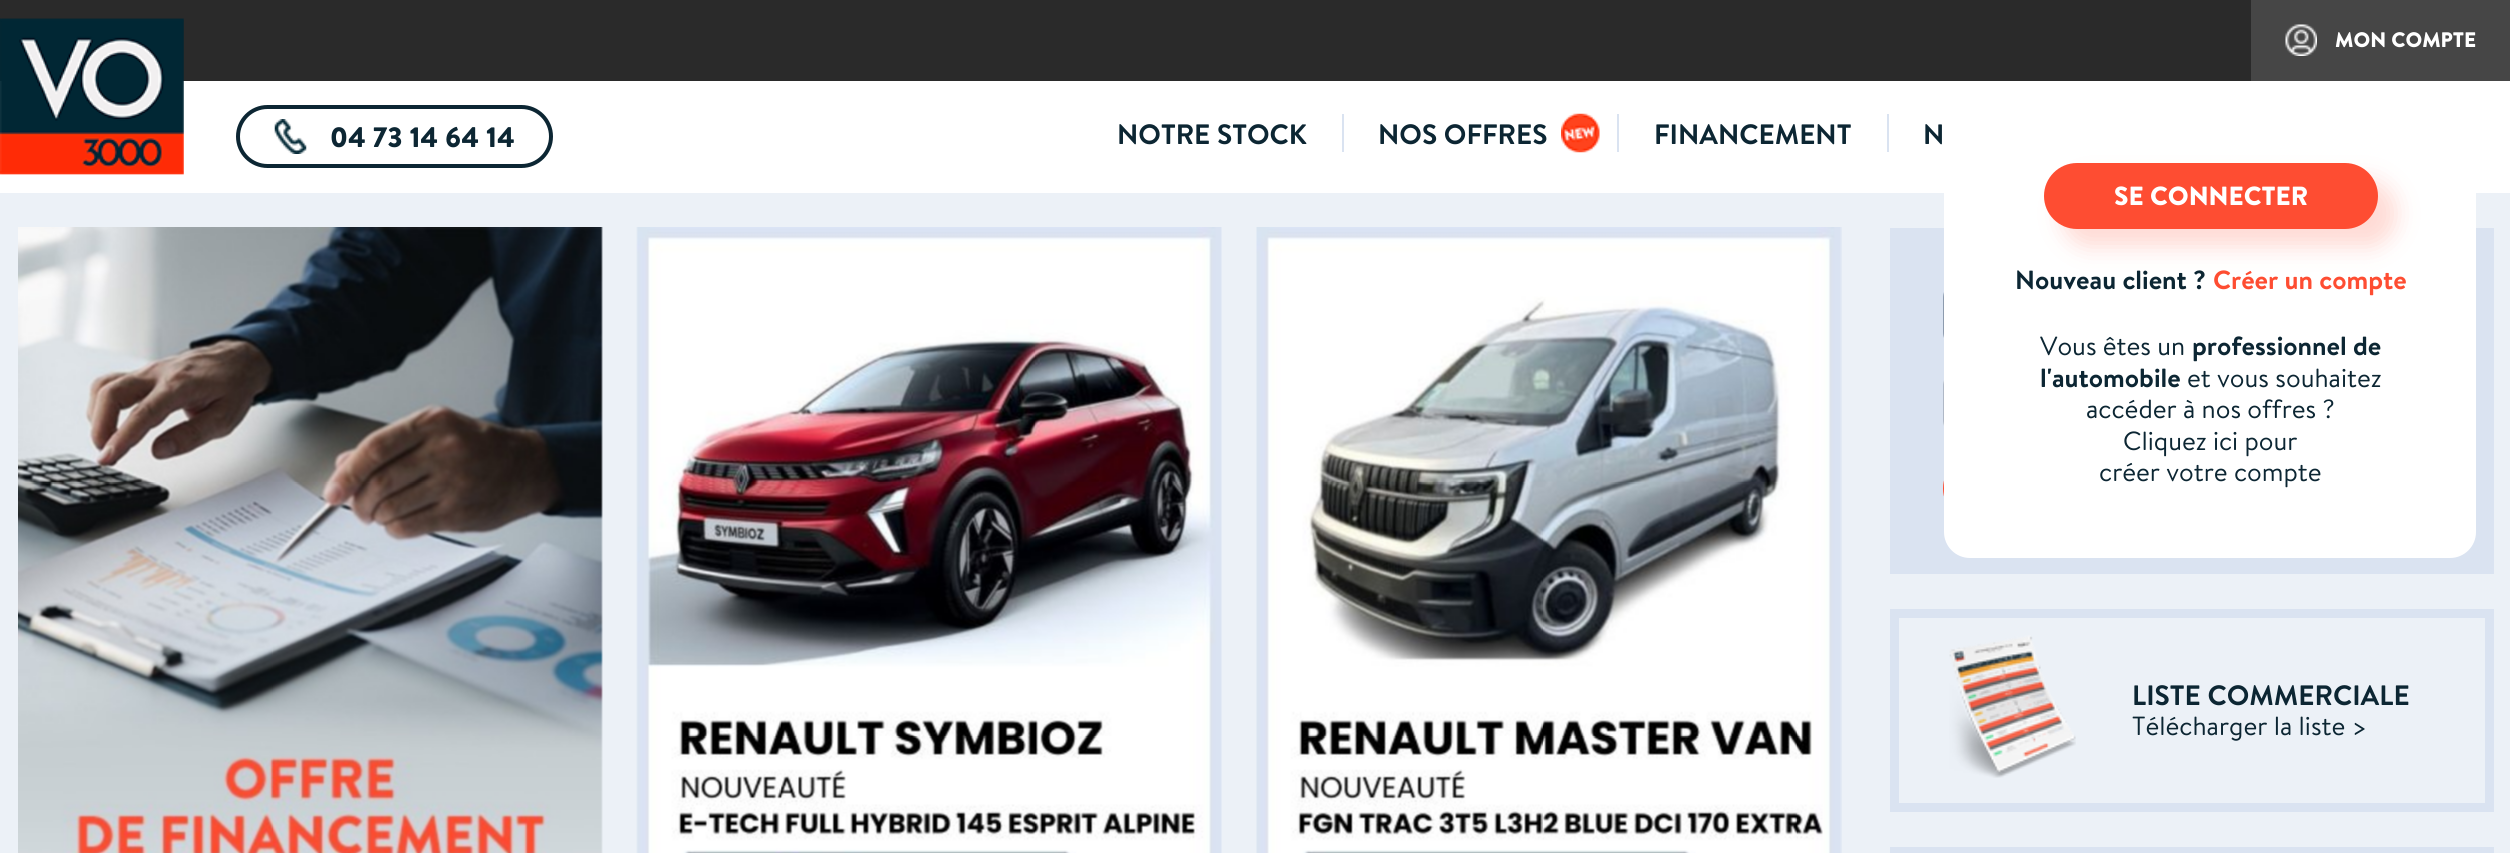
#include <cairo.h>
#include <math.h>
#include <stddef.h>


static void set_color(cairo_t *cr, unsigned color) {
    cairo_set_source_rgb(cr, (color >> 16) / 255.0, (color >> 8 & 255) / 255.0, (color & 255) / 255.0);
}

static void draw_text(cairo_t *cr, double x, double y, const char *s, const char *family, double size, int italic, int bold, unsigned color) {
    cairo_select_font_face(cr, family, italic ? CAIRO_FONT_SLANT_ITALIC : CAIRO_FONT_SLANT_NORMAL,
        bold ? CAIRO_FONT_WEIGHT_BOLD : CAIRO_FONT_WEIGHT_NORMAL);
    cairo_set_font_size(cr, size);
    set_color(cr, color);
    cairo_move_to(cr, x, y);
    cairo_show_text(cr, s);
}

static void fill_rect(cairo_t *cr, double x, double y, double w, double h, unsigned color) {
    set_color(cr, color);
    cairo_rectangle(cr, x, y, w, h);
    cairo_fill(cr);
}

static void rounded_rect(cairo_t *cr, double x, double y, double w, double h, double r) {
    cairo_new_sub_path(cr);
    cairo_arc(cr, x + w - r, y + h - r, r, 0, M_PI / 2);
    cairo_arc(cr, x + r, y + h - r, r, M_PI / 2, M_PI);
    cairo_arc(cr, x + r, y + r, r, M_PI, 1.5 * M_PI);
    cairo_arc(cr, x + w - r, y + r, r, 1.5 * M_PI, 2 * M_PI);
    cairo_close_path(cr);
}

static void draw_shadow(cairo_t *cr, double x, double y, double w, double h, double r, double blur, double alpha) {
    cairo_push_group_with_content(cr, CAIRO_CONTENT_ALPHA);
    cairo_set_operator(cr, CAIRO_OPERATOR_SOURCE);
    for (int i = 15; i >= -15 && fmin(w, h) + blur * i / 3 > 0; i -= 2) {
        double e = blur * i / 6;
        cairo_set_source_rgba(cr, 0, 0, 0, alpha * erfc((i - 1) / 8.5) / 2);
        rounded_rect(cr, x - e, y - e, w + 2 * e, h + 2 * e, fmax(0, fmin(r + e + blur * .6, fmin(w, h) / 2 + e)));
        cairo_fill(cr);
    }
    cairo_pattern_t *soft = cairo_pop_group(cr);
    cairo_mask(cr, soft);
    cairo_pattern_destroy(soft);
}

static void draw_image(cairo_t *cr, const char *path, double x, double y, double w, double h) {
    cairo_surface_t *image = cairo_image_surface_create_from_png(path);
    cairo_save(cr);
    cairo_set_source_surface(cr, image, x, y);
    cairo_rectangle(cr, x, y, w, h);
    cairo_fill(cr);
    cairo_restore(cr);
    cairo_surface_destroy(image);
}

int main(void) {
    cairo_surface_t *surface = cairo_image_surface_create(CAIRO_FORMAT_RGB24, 2510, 853);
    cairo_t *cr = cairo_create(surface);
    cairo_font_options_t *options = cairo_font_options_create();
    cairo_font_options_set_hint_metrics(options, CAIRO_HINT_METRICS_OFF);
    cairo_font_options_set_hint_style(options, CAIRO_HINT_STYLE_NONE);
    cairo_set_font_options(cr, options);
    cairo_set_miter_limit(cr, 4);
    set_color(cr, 0xECF1F7);
    cairo_paint(cr);
    fill_rect(cr, 0, 81, 2510, 112, 0xFFFFFF);
    fill_rect(cr, 0, 0, 2251, 81, 0x2A2A2A);
    draw_image(cr, "assets/img1.png", 0, 18, 184, 157);
    rounded_rect(cr, 238, 107, 313, 59, 29.5);
    set_color(cr, 0x0C2633);
    cairo_set_line_width(cr, 4);
    cairo_stroke(cr);
    draw_image(cr, "assets/img2.png", 274, 119, 33, 35);
    draw_text(cr, 330, 147, "04 73 14 64 14", "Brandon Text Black", 28, 0, 0, 0x0C2633);
    draw_text(cr, 1117, 144, "NOTRE STOCK", "Brandon Text", 28, 0, 1, 0x0C2633);
    fill_rect(cr, 1342, 114, 2, 38, 0xDAE3F1);
    draw_text(cr, 1378, 144, "NOS OFFRES", "Brandon Text", 28, 0, 1, 0x0C2633);
    draw_image(cr, "assets/img3.png", 1561, 113, 39, 40);
    draw_text(cr, 1654, 144, "FINANCEMENT", "Brandon Text", 28, 0, 1, 0x0C2633);
    fill_rect(cr, 1617, 114, 2, 38, 0xDAE3F1);
    draw_text(cr, 1923, 144, "N", "Brandon Text", 28, 0, 1, 0x0C2633);
    fill_rect(cr, 1887, 114, 2, 38, 0xDAE3F1);
    fill_rect(cr, 2251, 0, 259, 81, 0x464646);
    draw_image(cr, "assets/img4.png", 2285, 24, 32, 32);
    draw_text(cr, 2335, 47, "MON COMPTE", "Brandon Text Black", 21, 0, 0, 0xFFFFFF);
    fill_rect(cr, 1890, 228, 604, 346, 0xDAE3F1);
    rounded_rect(cr, 1944, 281, 496, 68, 17);
    set_color(cr, 0x8D9BAE);
    cairo_set_line_width(cr, 2);
    cairo_stroke(cr);
    set_color(cr, 0xFFFFFF);
    rounded_rect(cr, 1943, 368, 498, 70, 18);
    cairo_fill(cr);
    rounded_rect(cr, 1944, 369, 496, 68, 17);
    cairo_set_source_rgba(cr, 0.553, 0.608, 0.682, 0.7);
    cairo_stroke(cr);
    set_color(cr, 0xFE4D32);
    rounded_rect(cr, 1943, 455, 498, 67, 33.5);
    cairo_fill(cr);
    set_color(cr, 0xFFFFFF);
    rounded_rect(cr, 1944, 93, 532, 465, 26);
    cairo_fill(cr);
    set_color(cr, 0xFF472B);
    draw_shadow(cr, 2062, 180, 334, 67, 33.5, 11.5, 0.2);
    set_color(cr, 0xFE4D32);
    rounded_rect(cr, 2044, 163, 334, 66, 33);
    cairo_fill(cr);
    draw_text(cr, 2114, 205, "SE CONNECTER", "Brandon Text Black", 26.25, 0, 0, 0xFFFFFF);
    draw_text(cr, 2015, 289, "Nouveau client ?", "Brandon Text", 26.25, 0, 1, 0x0C2633);
    draw_text(cr, 2213, 289, "Créer un compte", "Brandon Text", 26.25, 0, 1, 0xFE4D32);
    draw_text(cr, 2040, 355, "Vous êtes un", "Brandon Text", 26.25, 0, 0, 0x0C2633);
    draw_text(cr, 2192, 355, "professionnel de", "Brandon Text", 26.25, 0, 1, 0x0C2633);
    draw_text(cr, 2040, 387, "l'automobile", "Brandon Text", 26.25, 0, 1, 0x0C2633);
    draw_text(cr, 2187, 387, "et vous souhaitez", "Brandon Text", 26.25, 0, 0, 0x0C2633);
    draw_text(cr, 2086, 418, "accéder à nos offres ?", "Brandon Text", 26.25, 0, 0, 0x0C2633);
    draw_text(cr, 2123, 450, "Cliquez ici pour", "Brandon Text", 26.25, 0, 0, 0x0C2633);
    draw_text(cr, 2099, 481, "créer votre compte", "Brandon Text", 26.25, 0, 0, 0x0C2633);
    draw_image(cr, "assets/img5.png", 18, 227, 585, 626);
    draw_image(cr, "assets/img6.png", 636, 227, 586, 626);
    draw_image(cr, "assets/img7.png", 1256, 227, 586, 626);
    cairo_rectangle(cr, 1894.5, 613.5, 595, 194);
    set_color(cr, 0xDAE3F1);
    cairo_set_line_width(cr, 9);
    cairo_stroke(cr);
    draw_image(cr, "assets/img8.png", 1949, 635, 127, 143);
    draw_text(cr, 2132, 705, "LISTE COMMERCIALE", "Brandon Text", 28, 0, 1, 0x0C2633);
    draw_text(cr, 2132, 735, "Télécharger la liste >", "Brandon Text", 26.25, 0, 0, 0x0C2633);
    fill_rect(cr, 1890, 847, 604, 6, 0xDAE3F1);
    cairo_surface_write_to_png(surface, "output.png");
    cairo_font_options_destroy(options);
    cairo_destroy(cr);
    cairo_surface_destroy(surface);
    return 0;
}
